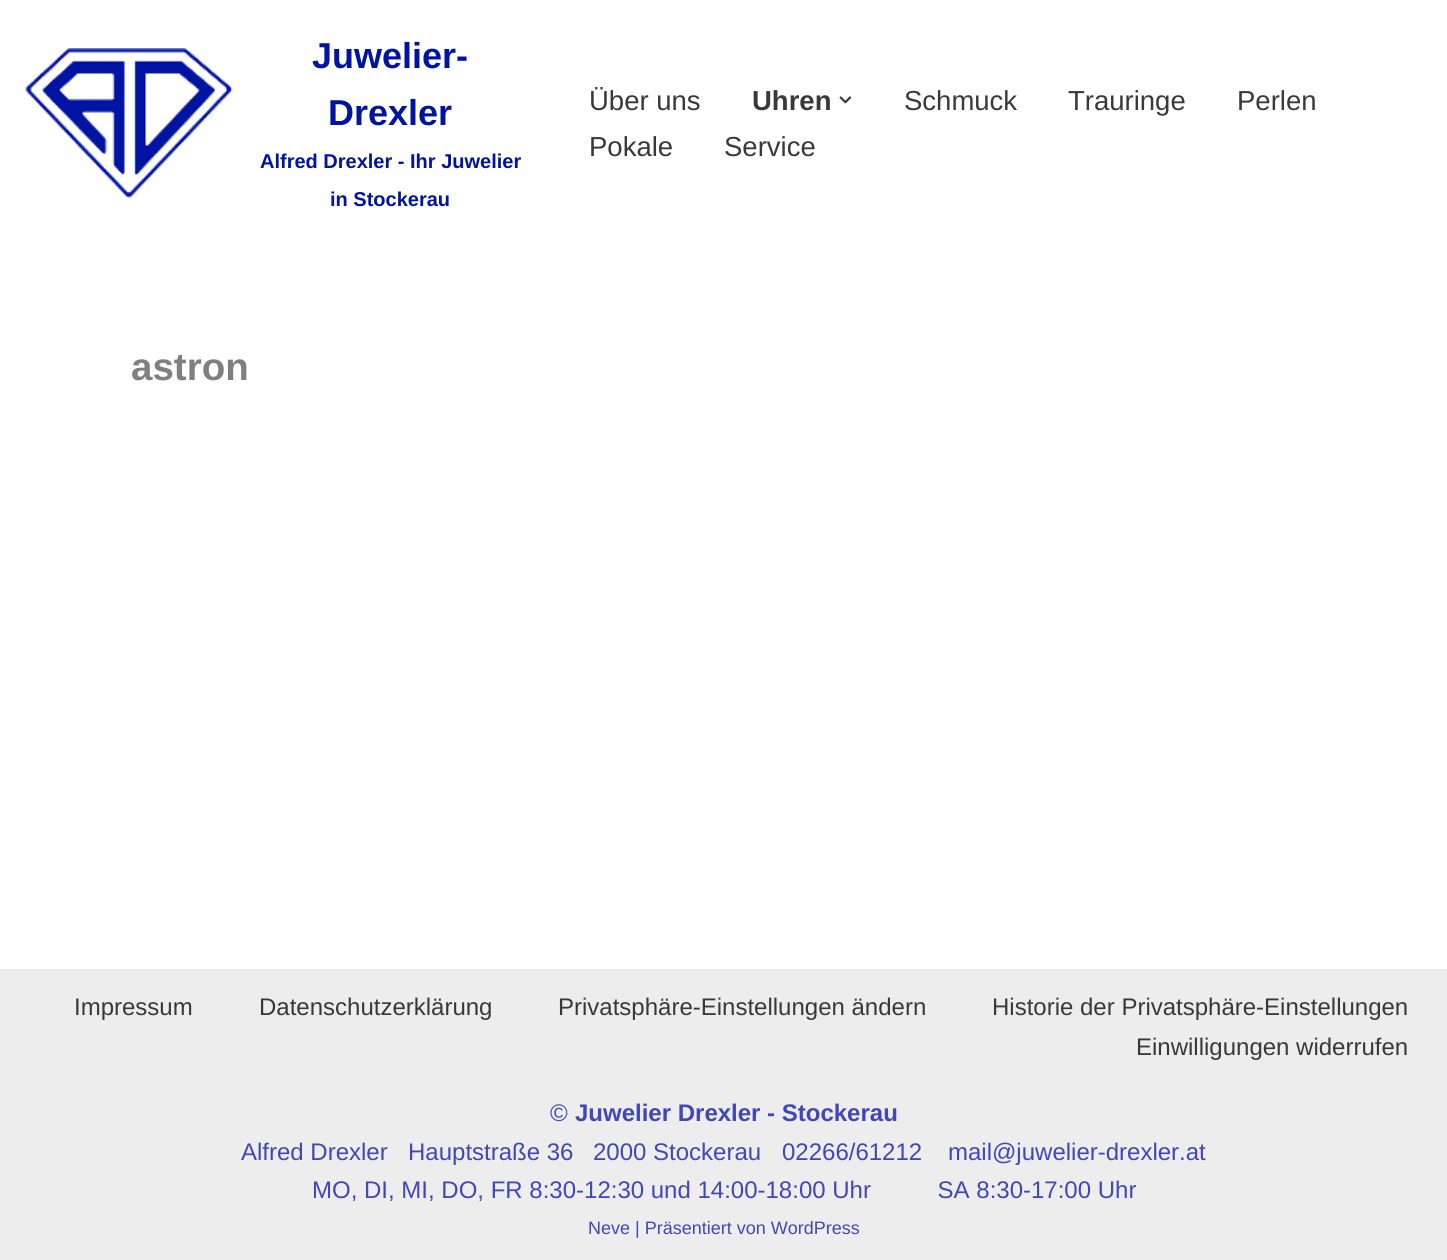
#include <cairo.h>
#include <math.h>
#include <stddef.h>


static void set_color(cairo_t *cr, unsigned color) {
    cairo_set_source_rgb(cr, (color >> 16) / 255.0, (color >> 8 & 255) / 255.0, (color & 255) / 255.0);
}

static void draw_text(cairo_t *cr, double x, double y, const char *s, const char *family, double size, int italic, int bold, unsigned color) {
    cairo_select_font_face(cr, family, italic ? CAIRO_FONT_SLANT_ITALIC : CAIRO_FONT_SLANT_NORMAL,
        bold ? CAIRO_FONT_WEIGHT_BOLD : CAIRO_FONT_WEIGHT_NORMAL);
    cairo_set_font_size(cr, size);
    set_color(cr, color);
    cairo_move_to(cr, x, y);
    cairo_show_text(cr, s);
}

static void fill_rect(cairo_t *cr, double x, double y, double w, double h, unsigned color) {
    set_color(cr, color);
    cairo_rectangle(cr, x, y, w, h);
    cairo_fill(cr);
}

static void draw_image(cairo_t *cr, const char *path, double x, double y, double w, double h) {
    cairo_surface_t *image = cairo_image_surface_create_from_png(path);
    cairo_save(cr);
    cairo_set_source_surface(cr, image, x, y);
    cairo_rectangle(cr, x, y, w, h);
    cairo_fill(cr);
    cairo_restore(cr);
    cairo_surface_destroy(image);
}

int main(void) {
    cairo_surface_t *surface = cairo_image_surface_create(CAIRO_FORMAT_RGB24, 1447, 1260);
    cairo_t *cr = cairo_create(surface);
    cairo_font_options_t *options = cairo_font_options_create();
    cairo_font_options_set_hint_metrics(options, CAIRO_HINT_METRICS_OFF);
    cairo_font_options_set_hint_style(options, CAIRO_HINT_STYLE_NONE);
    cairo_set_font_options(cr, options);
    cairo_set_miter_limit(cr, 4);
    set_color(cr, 0xFFFFFF);
    cairo_paint(cr);
    draw_image(cr, "assets/img1.png", 25, 48, 208, 150);
    draw_text(cr, 312, 68, "Juwelier-", "Liberation Sans", 36, 0, 1, 0x0014A4);
    draw_text(cr, 328, 125, "Drexler", "Liberation Sans", 36, 0, 1, 0x0014A4);
    draw_text(cr, 260, 168, "Alfred Drexler - Ihr Juwelier", "Liberation Sans", 20, 0, 1, 0x0014A4);
    draw_text(cr, 330, 206, "in Stockerau", "Liberation Sans", 20, 0, 1, 0x0014A4);
    draw_text(cr, 589, 110, "Über uns", "Liberation Sans", 27.5, 0, 0, 0x393939);
    draw_text(cr, 752, 110, "Uhren", "Liberation Sans", 27.5, 0, 1, 0x393939);
    draw_image(cr, "assets/img2.png", 839, 96, 13, 8);
    draw_text(cr, 904, 110, "Schmuck", "Liberation Sans", 27.5, 0, 0, 0x393939);
    draw_text(cr, 1068, 110, "Trauringe", "Liberation Sans", 27.5, 0, 0, 0x393939);
    draw_text(cr, 1237, 110, "Perlen", "Liberation Sans", 27.5, 0, 0, 0x393939);
    draw_text(cr, 589, 156, "Pokale", "Liberation Sans", 27.5, 0, 0, 0x393939);
    draw_text(cr, 724, 156, "Service", "Liberation Sans", 27.5, 0, 0, 0x393939);
    draw_text(cr, 131, 380, "astron", "Liberation Sans", 38.5, 0, 1, 0x808080);
    fill_rect(cr, 0, 969, 1447, 291, 0xEDEDED);
    draw_text(cr, 74, 1015, "Impressum", "Liberation Sans", 24, 0, 0, 0x393939);
    draw_text(cr, 259, 1015, "Datenschutzerklärung", "Liberation Sans", 24, 0, 0, 0x393939);
    draw_text(cr, 558, 1015, "Privatsphäre-Einstellungen ändern", "Liberation Sans", 24, 0, 0, 0x393939);
    draw_text(cr, 992, 1015, "Historie der Privatsphäre-Einstellungen", "Liberation Sans", 24, 0, 0, 0x393939);
    draw_text(cr, 1136, 1055, "Einwilligungen widerrufen", "Liberation Sans", 24, 0, 0, 0x393939);
    draw_text(cr, 550, 1121, "©", "Liberation Sans", 24, 0, 0, 0x4047BA);
    draw_text(cr, 575, 1121, "Juwelier Drexler - Stockerau", "Liberation Sans", 24, 0, 1, 0x4047BA);
    draw_text(cr, 241, 1160, "Alfred Drexler", "Liberation Sans", 24, 0, 0, 0x4047BA);
    draw_text(cr, 408, 1160, "Hauptstraße 36", "Liberation Sans", 24, 0, 0, 0x4047BA);
    draw_text(cr, 593, 1160, "2000 Stockerau", "Liberation Sans", 24, 0, 0, 0x4047BA);
    draw_text(cr, 782, 1160, "02266/61212", "Liberation Sans", 24, 0, 0, 0x4047BA);
    draw_text(cr, 948, 1160, "mail@juwelier-drexler.at", "Liberation Sans", 24, 0, 0, 0x4047BA);
    draw_text(cr, 312, 1198, "MO, DI, MI, DO, FR 8:30-12:30 und 14:00-18:00 Uhr          SA 8:30-17:00 Uhr", "Liberation Sans", 24, 0, 0, 0x4047BA);
    draw_text(cr, 588, 1234, "Neve | Präsentiert von WordPress", "Liberation Sans", 18, 0, 0, 0x4047BA);
    cairo_surface_write_to_png(surface, "output.png");
    cairo_font_options_destroy(options);
    cairo_destroy(cr);
    cairo_surface_destroy(surface);
    return 0;
}
